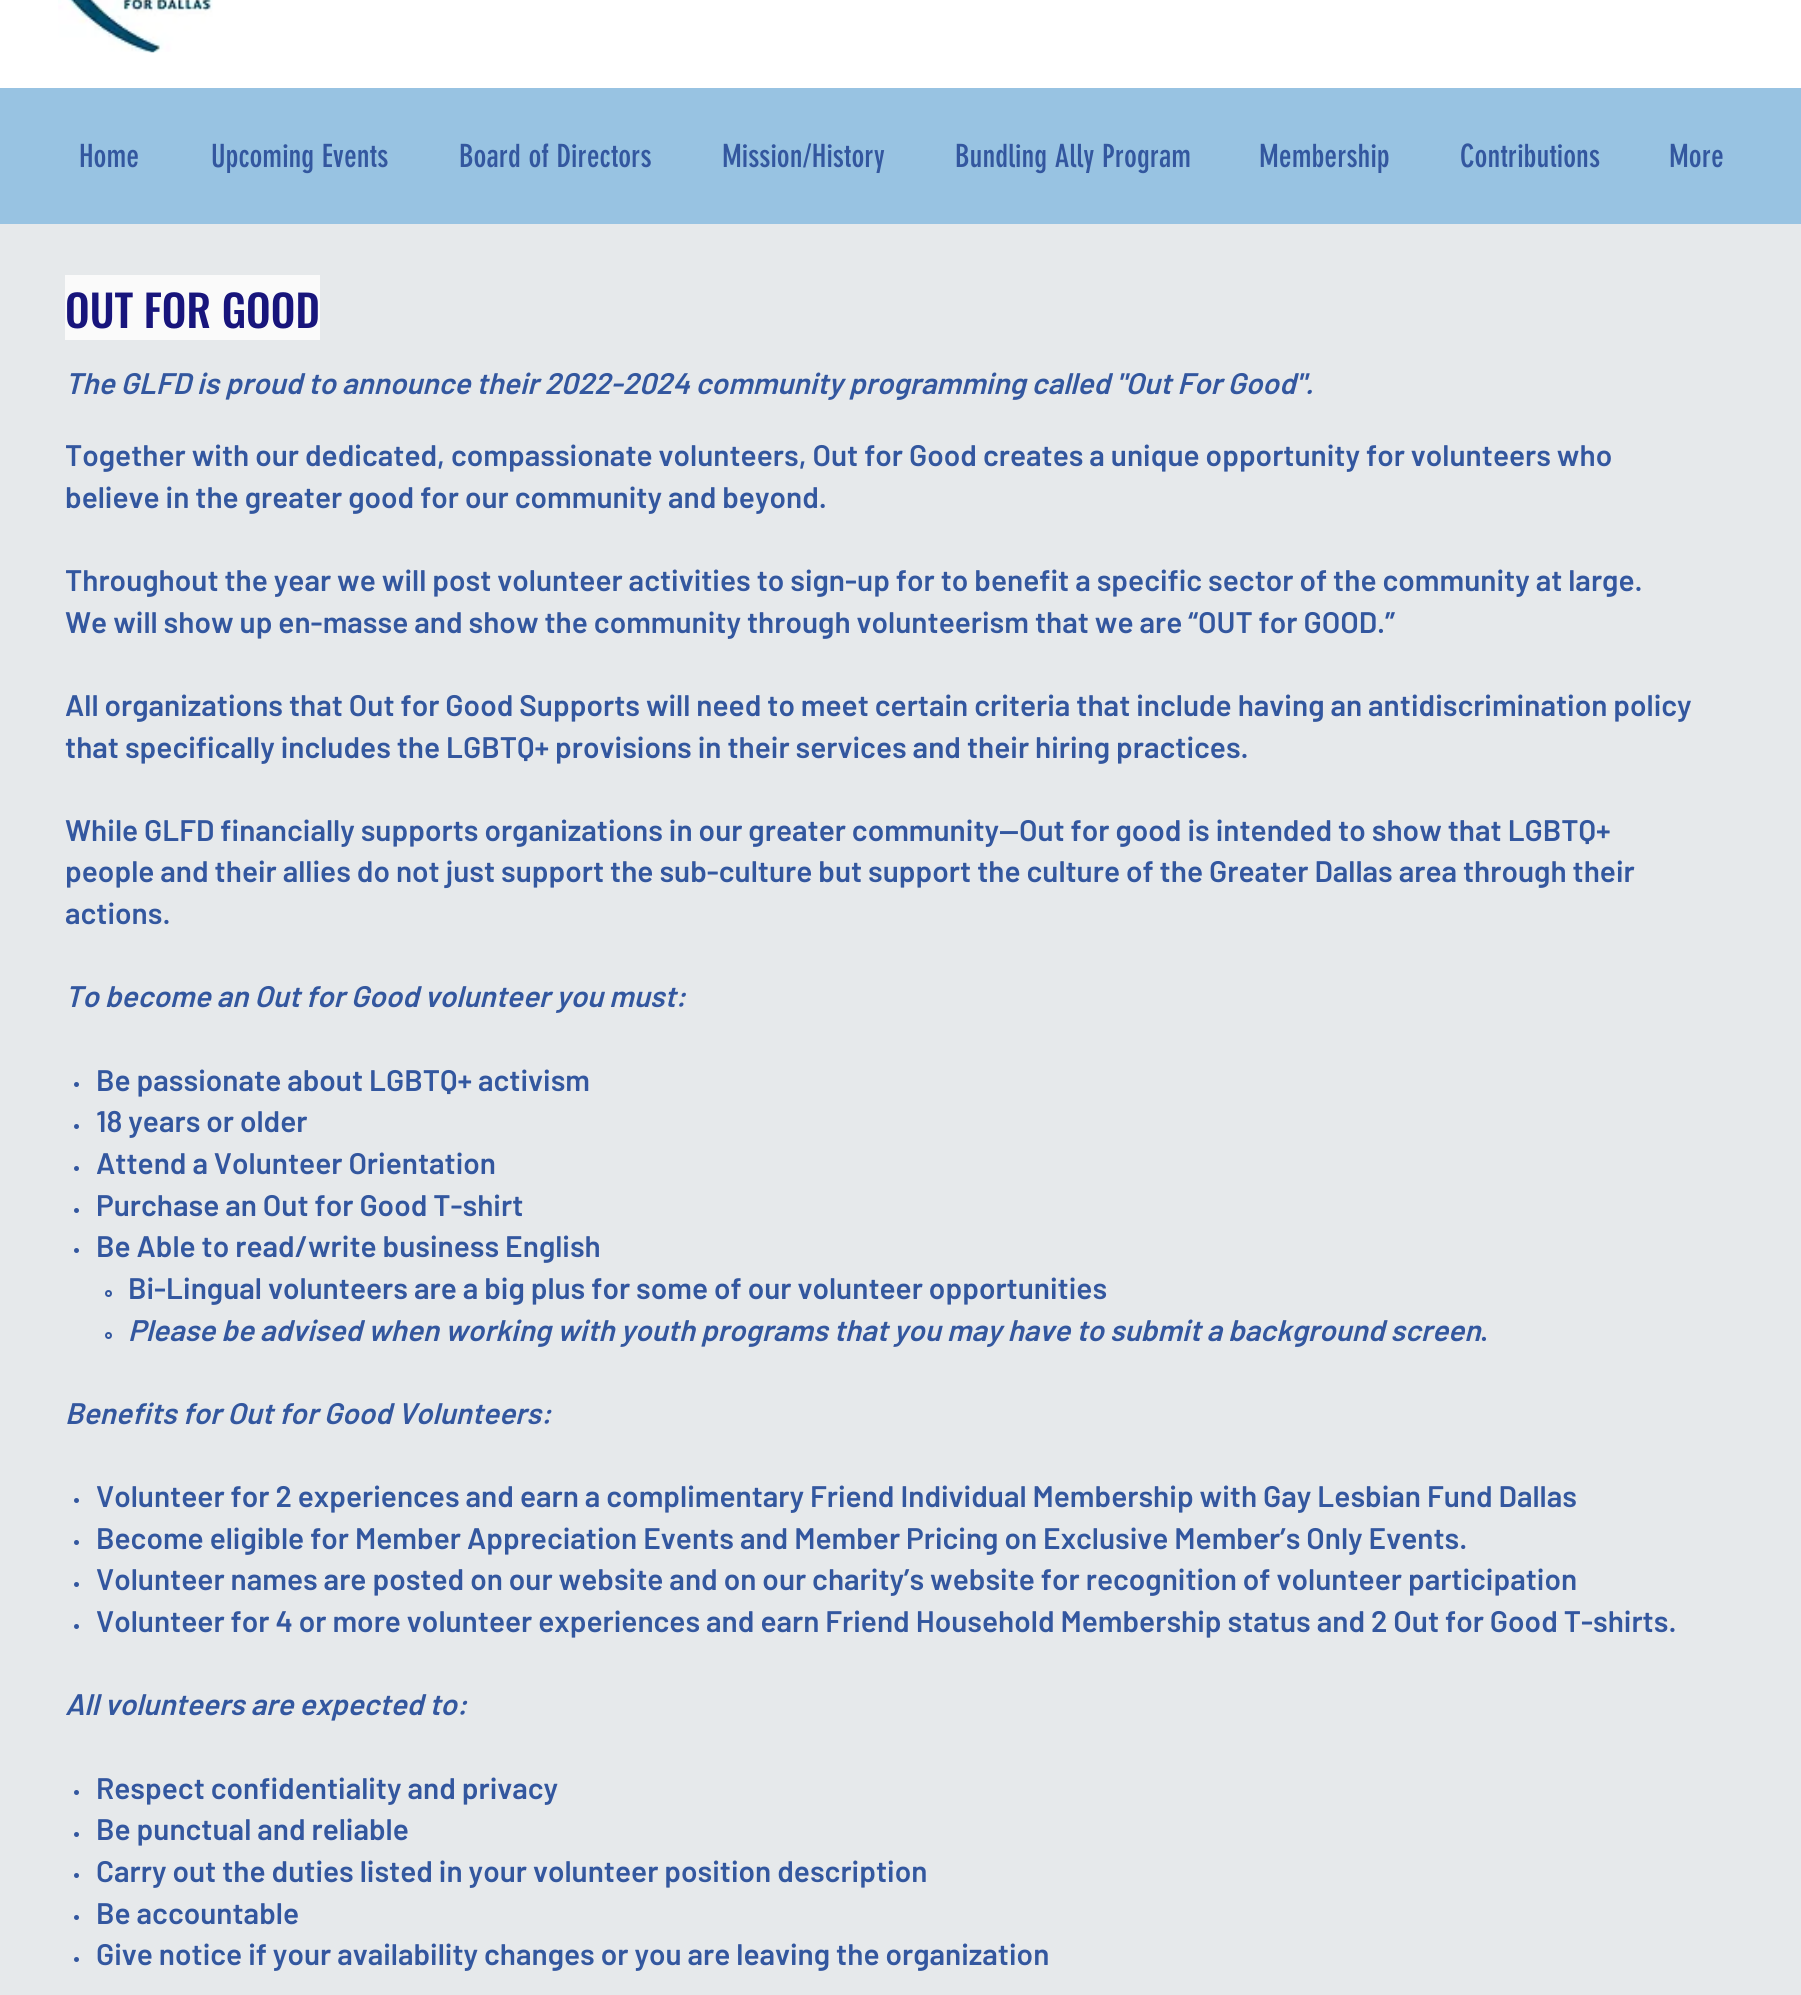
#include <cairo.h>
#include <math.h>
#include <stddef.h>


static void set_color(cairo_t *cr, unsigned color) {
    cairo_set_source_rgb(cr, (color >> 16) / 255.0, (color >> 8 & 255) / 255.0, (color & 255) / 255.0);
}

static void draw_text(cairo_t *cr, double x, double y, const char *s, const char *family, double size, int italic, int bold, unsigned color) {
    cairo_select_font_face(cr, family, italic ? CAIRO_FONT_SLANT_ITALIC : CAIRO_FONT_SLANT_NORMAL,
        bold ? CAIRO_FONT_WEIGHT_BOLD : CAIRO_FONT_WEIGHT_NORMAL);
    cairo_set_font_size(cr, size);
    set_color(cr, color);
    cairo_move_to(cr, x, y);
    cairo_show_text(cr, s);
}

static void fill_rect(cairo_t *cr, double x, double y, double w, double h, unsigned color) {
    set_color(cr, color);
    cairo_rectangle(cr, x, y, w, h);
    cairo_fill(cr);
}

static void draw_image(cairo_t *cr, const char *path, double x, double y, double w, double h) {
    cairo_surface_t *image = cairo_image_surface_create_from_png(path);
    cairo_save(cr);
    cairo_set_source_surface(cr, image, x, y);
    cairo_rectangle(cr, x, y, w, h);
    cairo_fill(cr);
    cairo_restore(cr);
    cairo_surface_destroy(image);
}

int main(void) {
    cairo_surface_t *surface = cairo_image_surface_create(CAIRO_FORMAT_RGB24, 1801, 1995);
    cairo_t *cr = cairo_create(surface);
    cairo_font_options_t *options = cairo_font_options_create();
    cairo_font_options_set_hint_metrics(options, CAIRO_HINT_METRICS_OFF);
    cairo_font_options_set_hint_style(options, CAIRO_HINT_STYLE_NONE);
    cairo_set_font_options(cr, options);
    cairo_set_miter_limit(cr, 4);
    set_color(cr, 0xE6E9EB);
    cairo_paint(cr);
    fill_rect(cr, 0, 88, 1801, 136, 0x98C3E2);
    fill_rect(cr, 0, 0, 1801, 88, 0xFFFFFF);
    draw_image(cr, "assets/img1.png", 58, 0, 155, 53);
    draw_text(cr, 79, 167, "Home", "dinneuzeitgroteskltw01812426", 31.5, 0, 0, 0x33579F);
    draw_text(cr, 211, 167, "Upcoming Events", "dinneuzeitgroteskltw01812426", 31.5, 0, 0, 0x33579F);
    draw_text(cr, 459, 167, "Board of Directors", "dinneuzeitgroteskltw01812426", 31.5, 0, 0, 0x33579F);
    draw_text(cr, 722, 167, "Mission/History", "dinneuzeitgroteskltw01812426", 31.5, 0, 0, 0x33579F);
    draw_text(cr, 955, 167, "Bundling Ally Program", "dinneuzeitgroteskltw01812426", 31.5, 0, 0, 0x33579F);
    draw_text(cr, 1259, 167, "Membership", "dinneuzeitgroteskltw01812426", 31.5, 0, 0, 0x33579F);
    draw_text(cr, 1460, 167, "Contributions", "dinneuzeitgroteskltw01812426", 31.5, 0, 0, 0x33579F);
    draw_text(cr, 1669, 167, "More", "dinneuzeitgroteskltw01812426", 31.5, 0, 0, 0x33579F);
    fill_rect(cr, 65, 275, 255, 65, 0xFAFAFA);
    draw_text(cr, 65, 328, "OUT FOR GOOD", "Oswald Medium", 43.75, 0, 0, 0x18157C);
    draw_text(cr, 65, 394, "The GLFD is proud to announce their 2022-2024 community programming called \"Out For Good\".", "Barlow SemiBold", 29.75, 1, 0, 0x33579F);
    draw_text(cr, 65, 466, "Together with our dedicated, compassionate volunteers, Out for Good creates a unique opportunity for volunteers who", "Barlow SemiBold", 29.75, 0, 0, 0x33579F);
    draw_text(cr, 65, 508, "believe in the greater good for our community and beyond.", "Barlow SemiBold", 29.75, 0, 0, 0x33579F);
    draw_text(cr, 65, 591, "Throughout the year we will post volunteer activities to sign-up for to benefit a specific sector of the community at large.", "Barlow SemiBold", 29.75, 0, 0, 0x33579F);
    draw_text(cr, 65, 633, "We will show up en-masse and show the community through volunteerism that we are “OUT for GOOD.”", "Barlow SemiBold", 29.75, 0, 0, 0x33579F);
    draw_text(cr, 65, 716, "All organizations that Out for Good Supports will need to meet certain criteria that include having an antidiscrimination policy", "Barlow SemiBold", 29.75, 0, 0, 0x33579F);
    draw_text(cr, 65, 758, "that specifically includes the LGBTQ+ provisions in their services and their hiring practices.", "Barlow SemiBold", 29.75, 0, 0, 0x33579F);
    draw_text(cr, 65, 841, "While GLFD financially supports organizations in our greater community—Out for good is intended to show that LGBTQ+", "Barlow SemiBold", 29.75, 0, 0, 0x33579F);
    draw_text(cr, 65, 882, "people and their allies do not just support the sub-culture but support the culture of the Greater Dallas area through their", "Barlow SemiBold", 29.75, 0, 0, 0x33579F);
    draw_text(cr, 65, 924, "actions.", "Barlow SemiBold", 29.75, 0, 0, 0x33579F);
    draw_text(cr, 65, 1007, "To become an Out for Good volunteer you must:", "Barlow SemiBold", 29.75, 1, 0, 0x33579F);
    cairo_new_path(cr);
    cairo_arc(cr, 76.5, 1084.5, 2.5, 0, 2 * M_PI);
    cairo_fill(cr);
    draw_text(cr, 96, 1091, "Be passionate about LGBTQ+ activism", "Barlow SemiBold", 29.75, 0, 0, 0x33579F);
    cairo_new_path(cr);
    cairo_arc(cr, 76.5, 1126.5, 2.5, 0, 2 * M_PI);
    cairo_fill(cr);
    draw_text(cr, 96, 1132, "18 years or older", "Barlow SemiBold", 29.75, 0, 0, 0x33579F);
    cairo_new_path(cr);
    cairo_arc(cr, 76.5, 1168.5, 2.5, 0, 2 * M_PI);
    cairo_fill(cr);
    draw_text(cr, 96, 1174, "Attend a Volunteer Orientation", "Barlow SemiBold", 29.75, 0, 0, 0x33579F);
    cairo_new_path(cr);
    cairo_arc(cr, 76.5, 1210.5, 2.5, 0, 2 * M_PI);
    cairo_fill(cr);
    draw_text(cr, 96, 1216, "Purchase an Out for Good T-shirt", "Barlow SemiBold", 29.75, 0, 0, 0x33579F);
    cairo_new_path(cr);
    cairo_arc(cr, 76.5, 1250.5, 2.5, 0, 2 * M_PI);
    cairo_fill(cr);
    draw_text(cr, 96, 1257, "Be Able to read/write business English", "Barlow SemiBold", 29.75, 0, 0, 0x33579F);
    cairo_new_path(cr);
    cairo_arc(cr, 108.5, 1293.5, 2.5, 0, 2 * M_PI);
    cairo_stroke(cr);
    draw_text(cr, 128, 1299, "Bi-Lingual volunteers are a big plus for some of our volunteer opportunities", "Barlow SemiBold", 29.75, 0, 0, 0x33579F);
    cairo_new_path(cr);
    cairo_arc(cr, 108.5, 1335.5, 2.5, 0, 2 * M_PI);
    cairo_stroke(cr);
    draw_text(cr, 128, 1341, "Please be advised when working with youth programs that you may have to submit a background screen", "Barlow SemiBold", 29.75, 1, 0, 0x33579F);
    draw_text(cr, 1480, 1341, ".", "Barlow SemiBold", 29.75, 0, 0, 0x33579F);
    draw_text(cr, 65, 1424, "Benefits for Out for Good Volunteers:", "Barlow SemiBold", 29.75, 1, 0, 0x33579F);
    cairo_new_path(cr);
    cairo_arc(cr, 76.5, 1500.5, 2.5, 0, 2 * M_PI);
    cairo_fill(cr);
    draw_text(cr, 96, 1507, "Volunteer for 2 experiences and earn a complimentary Friend Individual Membership with Gay Lesbian Fund Dallas", "Barlow SemiBold", 29.75, 0, 0, 0x33579F);
    cairo_new_path(cr);
    cairo_arc(cr, 76.5, 1542.5, 2.5, 0, 2 * M_PI);
    cairo_fill(cr);
    draw_text(cr, 96, 1549, "Become eligible for Member Appreciation Events and Member Pricing on Exclusive Member’s Only Events.", "Barlow SemiBold", 29.75, 0, 0, 0x33579F);
    cairo_new_path(cr);
    cairo_arc(cr, 76.5, 1584.5, 2.5, 0, 2 * M_PI);
    cairo_fill(cr);
    draw_text(cr, 96, 1590, "Volunteer names are posted on our website and on our charity’s website for recognition of volunteer participation", "Barlow SemiBold", 29.75, 0, 0, 0x33579F);
    cairo_new_path(cr);
    cairo_arc(cr, 76.5, 1626.5, 2.5, 0, 2 * M_PI);
    cairo_fill(cr);
    draw_text(cr, 96, 1632, "Volunteer for 4 or more volunteer experiences and earn Friend Household Membership status and 2 Out for Good T-shirts.", "Barlow SemiBold", 29.75, 0, 0, 0x33579F);
    draw_text(cr, 65, 1715, "All volunteers are expected to:", "Barlow SemiBold", 29.75, 1, 0, 0x33579F);
    cairo_new_path(cr);
    cairo_arc(cr, 76.5, 1792.5, 2.5, 0, 2 * M_PI);
    cairo_fill(cr);
    draw_text(cr, 96, 1799, "Respect confidentiality and privacy", "Barlow SemiBold", 29.75, 0, 0, 0x33579F);
    cairo_new_path(cr);
    cairo_arc(cr, 76.5, 1834.5, 2.5, 0, 2 * M_PI);
    cairo_fill(cr);
    draw_text(cr, 96, 1840, "Be punctual and reliable", "Barlow SemiBold", 29.75, 0, 0, 0x33579F);
    cairo_new_path(cr);
    cairo_arc(cr, 76.5, 1875.5, 2.5, 0, 2 * M_PI);
    cairo_fill(cr);
    draw_text(cr, 96, 1882, "Carry out the duties listed in your volunteer position description", "Barlow SemiBold", 29.75, 0, 0, 0x33579F);
    cairo_new_path(cr);
    cairo_arc(cr, 76.5, 1917.5, 2.5, 0, 2 * M_PI);
    cairo_fill(cr);
    draw_text(cr, 96, 1924, "Be accountable", "Barlow SemiBold", 29.75, 0, 0, 0x33579F);
    cairo_new_path(cr);
    cairo_arc(cr, 76.5, 1959.5, 2.5, 0, 2 * M_PI);
    cairo_fill(cr);
    draw_text(cr, 96, 1965, "Give notice if your availability changes or you are leaving the organization", "Barlow SemiBold", 29.75, 0, 0, 0x33579F);
    cairo_surface_write_to_png(surface, "output.png");
    cairo_font_options_destroy(options);
    cairo_destroy(cr);
    cairo_surface_destroy(surface);
    return 0;
}
